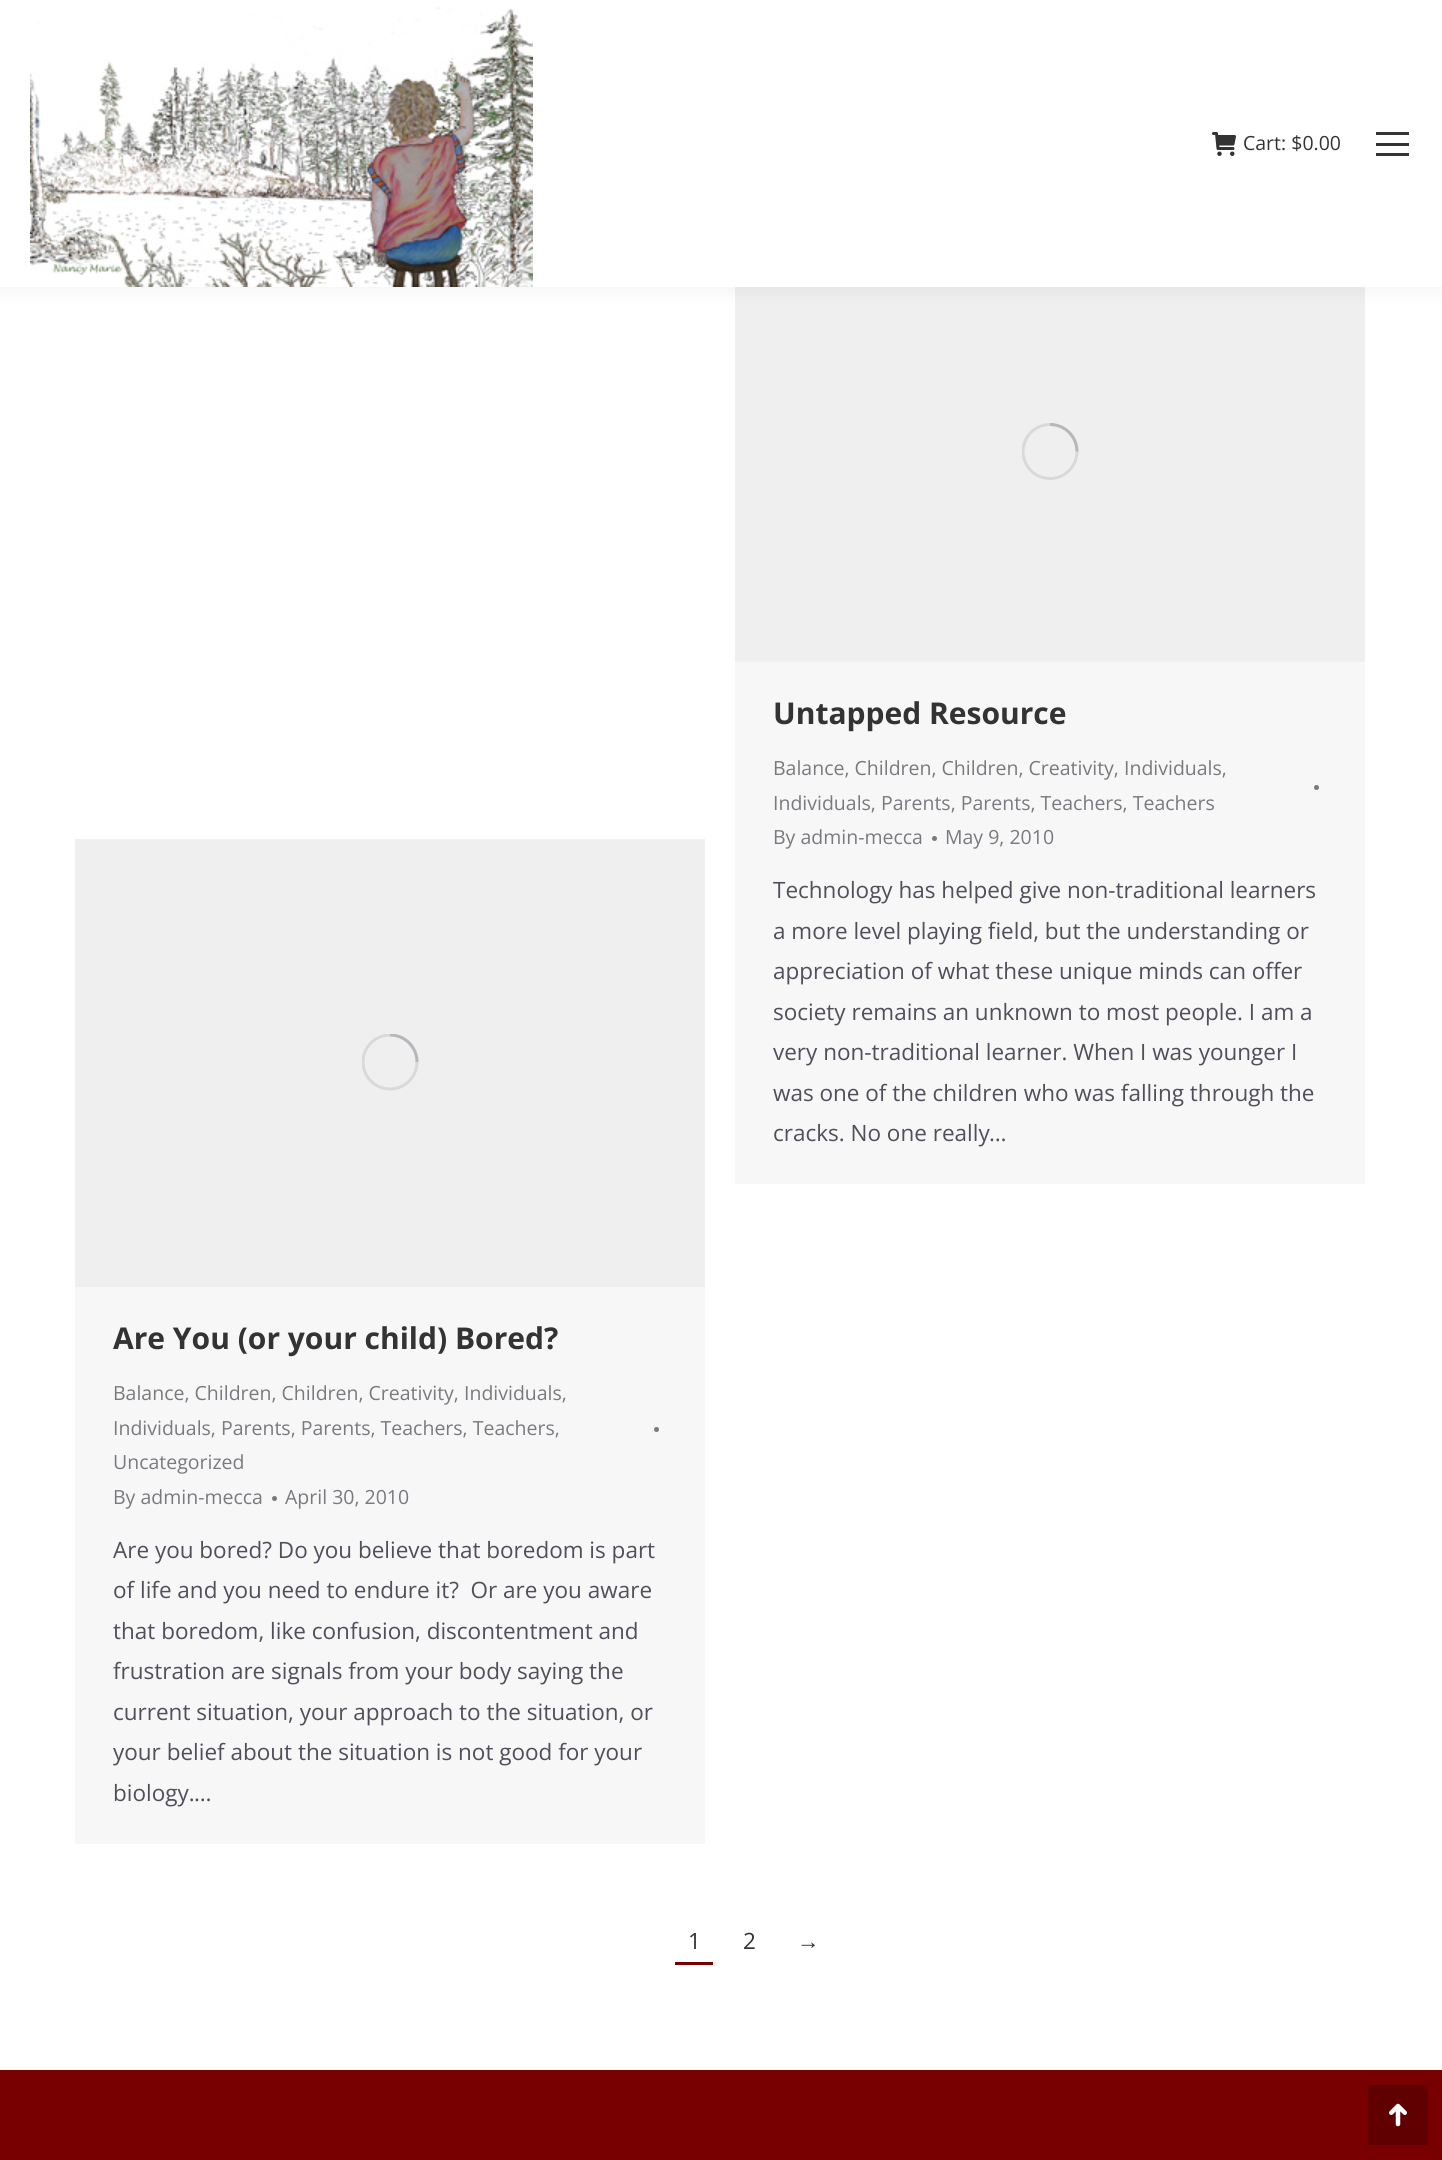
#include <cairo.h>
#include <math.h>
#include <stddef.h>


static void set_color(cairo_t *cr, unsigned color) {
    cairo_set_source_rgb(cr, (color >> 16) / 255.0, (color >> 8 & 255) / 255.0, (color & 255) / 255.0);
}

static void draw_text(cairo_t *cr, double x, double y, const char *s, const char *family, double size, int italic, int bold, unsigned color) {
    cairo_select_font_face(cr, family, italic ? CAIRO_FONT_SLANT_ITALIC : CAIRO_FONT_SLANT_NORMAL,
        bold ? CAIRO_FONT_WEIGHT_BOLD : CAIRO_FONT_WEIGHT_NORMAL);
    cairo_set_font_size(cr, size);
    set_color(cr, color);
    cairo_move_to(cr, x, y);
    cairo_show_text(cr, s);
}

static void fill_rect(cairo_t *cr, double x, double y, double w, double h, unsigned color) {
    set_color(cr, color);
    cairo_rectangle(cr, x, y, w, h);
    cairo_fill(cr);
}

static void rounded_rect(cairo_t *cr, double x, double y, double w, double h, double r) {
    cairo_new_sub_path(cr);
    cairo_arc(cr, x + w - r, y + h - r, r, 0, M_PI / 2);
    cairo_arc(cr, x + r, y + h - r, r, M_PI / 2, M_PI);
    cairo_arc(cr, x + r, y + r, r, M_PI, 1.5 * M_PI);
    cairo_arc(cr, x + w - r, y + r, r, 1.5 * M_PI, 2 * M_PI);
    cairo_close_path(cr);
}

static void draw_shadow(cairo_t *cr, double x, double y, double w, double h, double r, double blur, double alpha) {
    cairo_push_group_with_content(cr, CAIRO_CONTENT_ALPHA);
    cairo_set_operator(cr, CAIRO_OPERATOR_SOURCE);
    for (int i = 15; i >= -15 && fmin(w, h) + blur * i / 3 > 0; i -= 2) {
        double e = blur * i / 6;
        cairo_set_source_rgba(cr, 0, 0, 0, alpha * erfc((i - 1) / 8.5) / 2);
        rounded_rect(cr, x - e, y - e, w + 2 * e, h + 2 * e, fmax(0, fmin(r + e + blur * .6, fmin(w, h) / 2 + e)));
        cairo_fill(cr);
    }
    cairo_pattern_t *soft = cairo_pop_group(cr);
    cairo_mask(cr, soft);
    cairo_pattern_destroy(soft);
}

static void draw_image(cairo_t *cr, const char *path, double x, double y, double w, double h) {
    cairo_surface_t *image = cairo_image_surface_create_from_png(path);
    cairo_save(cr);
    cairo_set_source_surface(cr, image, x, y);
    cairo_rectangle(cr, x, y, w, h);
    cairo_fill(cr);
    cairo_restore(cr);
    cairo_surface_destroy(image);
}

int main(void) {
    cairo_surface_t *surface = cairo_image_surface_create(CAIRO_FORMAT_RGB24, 1442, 2160);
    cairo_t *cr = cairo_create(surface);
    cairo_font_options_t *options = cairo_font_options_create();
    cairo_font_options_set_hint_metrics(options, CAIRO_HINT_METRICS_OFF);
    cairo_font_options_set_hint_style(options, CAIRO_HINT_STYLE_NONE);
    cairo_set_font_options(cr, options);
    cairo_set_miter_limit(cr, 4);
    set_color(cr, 0xFFFFFF);
    cairo_paint(cr);
    fill_rect(cr, 735, 287, 630, 375, 0xEFEFF0);
    set_color(cr, 0x000000);
    draw_shadow(cr, -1, -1, 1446, 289, 0, 11, 0.07);
    fill_rect(cr, 0, 0, 1442, 287, 0xFFFFFF);
    draw_image(cr, "assets/img1.png", 30, 7, 503, 280);
    draw_image(cr, "assets/img2.png", 1212, 132, 24, 24);
    draw_text(cr, 1243, 150, "Cart: $0.00", "Open Sans", 19.5, 0, 0, 0x333333);
    fill_rect(cr, 1376, 132, 33, 3, 0x333333);
    fill_rect(cr, 1376, 143, 33, 3, 0x333333);
    fill_rect(cr, 1376, 153, 33, 3, 0x333333);
    fill_rect(cr, 735, 662, 630, 522, 0xF7F7F7);
    cairo_save(cr);
    cairo_rectangle(cr, 1022, 423, 57, 57);
    cairo_clip(cr);
    cairo_arc(cr, 1050, 451.5, 27, 0, 2 * M_PI);
    set_color(cr, 0xD9D9DC);
    cairo_set_line_width(cr, 3);
    cairo_stroke(cr);
    cairo_restore(cr);
    cairo_new_path(cr);
    cairo_move_to(cr, 1077, 451.5);
    cairo_curve_to(cr, 1077, 436.5, 1065, 424.5, 1050, 424.5);
    cairo_set_source_rgba(cr, 0.314, 0.314, 0.357, 0.25);
    cairo_set_line_width(cr, 3);
    cairo_stroke(cr);
    draw_text(cr, 773, 724, "Untapped Resource", "Open Sans", 30, 0, 1, 0x333333);
    draw_text(cr, 773, 775, "Balance, Children, Children, Creativity, Individuals,", "Open Sans", 19.5, 0, 0, 0x797A7F);
    cairo_new_path(cr);
    cairo_arc(cr, 1316.5, 787.5, 2.5, 0, 2 * M_PI);
    cairo_fill(cr);
    draw_text(cr, 773, 810, "Individuals, Parents, Parents, Teachers, Teachers", "Open Sans", 19.5, 0, 0, 0x797A7F);
    draw_text(cr, 773, 844, "By admin-mecca", "Open Sans", 19.5, 0, 0, 0x797A7F);
    cairo_new_path(cr);
    cairo_arc(cr, 934.5, 838.5, 2.5, 0, 2 * M_PI);
    cairo_fill(cr);
    draw_text(cr, 945, 844, "May 9, 2010", "Open Sans", 19.5, 0, 0, 0x797A7F);
    draw_text(cr, 773, 898, "Technology has helped give non-traditional learners", "Open Sans", 22.5, 0, 0, 0x50505B);
    draw_text(cr, 773, 939, "a more level playing field, but the understanding or", "Open Sans", 22.5, 0, 0, 0x50505B);
    draw_text(cr, 773, 979, "appreciation of what these unique minds can offer", "Open Sans", 22.5, 0, 0, 0x50505B);
    draw_text(cr, 773, 1020, "society remains an unknown to most people. I am a", "Open Sans", 22.5, 0, 0, 0x50505B);
    draw_text(cr, 773, 1060, "very non-traditional learner. When I was younger I", "Open Sans", 22.5, 0, 0, 0x50505B);
    draw_text(cr, 773, 1101, "was one of the children who was falling through the", "Open Sans", 22.5, 0, 0, 0x50505B);
    draw_text(cr, 773, 1141, "cracks. No one really", "Open Sans", 22.5, 0, 0, 0x50505B);
    draw_text(cr, 989, 1141, "…", "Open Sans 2", 22.5, 0, 0, 0x50505B);
    fill_rect(cr, 75, 1287, 630, 557, 0xF7F7F7);
    fill_rect(cr, 75, 839, 630, 448, 0xEFEFF0);
    cairo_save(cr);
    cairo_rectangle(cr, 362, 1034, 57, 57);
    cairo_clip(cr);
    cairo_arc(cr, 390, 1062, 27, 0, 2 * M_PI);
    set_color(cr, 0xD9D9DC);
    cairo_stroke(cr);
    cairo_new_path(cr);
    cairo_move_to(cr, 417, 1062);
    cairo_curve_to(cr, 417, 1047, 405, 1035, 390, 1035);
    cairo_set_source_rgba(cr, 0.314, 0.314, 0.357, 0.25);
    cairo_stroke(cr);
    cairo_restore(cr);
    draw_text(cr, 113, 1349, "Are You (or your child) Bored?", "Open Sans", 30, 0, 1, 0x333333);
    draw_text(cr, 113, 1400, "Balance, Children, Children, Creativity, Individuals,", "Open Sans", 19.5, 0, 0, 0x797A7F);
    draw_text(cr, 113, 1435, "Individuals, Parents, Parents, Teachers, Teachers,", "Open Sans", 19.5, 0, 0, 0x797A7F);
    cairo_new_path(cr);
    cairo_arc(cr, 656.5, 1429.5, 2.5, 0, 2 * M_PI);
    cairo_fill(cr);
    draw_text(cr, 113, 1469, "Uncategorized", "Open Sans", 19.5, 0, 0, 0x797A7F);
    draw_text(cr, 113, 1504, "By admin-mecca", "Open Sans", 19.5, 0, 0, 0x797A7F);
    cairo_new_path(cr);
    cairo_arc(cr, 274.5, 1498.5, 2.5, 0, 2 * M_PI);
    cairo_fill(cr);
    draw_text(cr, 285, 1504, "April 30, 2010", "Open Sans", 19.5, 0, 0, 0x797A7F);
    draw_text(cr, 113, 1558, "Are you bored? Do you believe that boredom is part", "Open Sans", 22.5, 0, 0, 0x50505B);
    draw_text(cr, 113, 1598, "of life and you need to endure it?  Or are you aware", "Open Sans", 22.5, 0, 0, 0x50505B);
    draw_text(cr, 113, 1639, "that boredom, like confusion, discontentment and", "Open Sans", 22.5, 0, 0, 0x50505B);
    draw_text(cr, 113, 1679, "frustration are signals from your body saying the", "Open Sans", 22.5, 0, 0, 0x50505B);
    draw_text(cr, 113, 1720, "current situation, your approach to the situation, or", "Open Sans", 22.5, 0, 0, 0x50505B);
    draw_text(cr, 113, 1760, "your belief about the situation is not good for your", "Open Sans", 22.5, 0, 0, 0x50505B);
    draw_text(cr, 113, 1801, "biology.", "Open Sans", 22.5, 0, 0, 0x50505B);
    draw_text(cr, 194, 1801, "…", "Open Sans 2", 22.5, 0, 0, 0x50505B);
    draw_text(cr, 688, 1949, "1", "Open Sans", 22.5, 0, 0, 0x333333);
    fill_rect(cr, 675, 1962, 38, 3, 0x790000);
    draw_text(cr, 743, 1949, "2", "Open Sans", 22.5, 0, 0, 0x333333);
    draw_text(cr, 797, 1949, "→", "Liberation Sans", 22.5, 0, 0, 0x333333);
    fill_rect(cr, 0, 2070, 1442, 90, 0x790000);
    set_color(cr, 0x610000);
    rounded_rect(cr, 1368, 2085, 60, 60, 1.5);
    cairo_fill(cr);
    draw_image(cr, "assets/img3.png", 1389, 2103, 18, 24);
    cairo_surface_write_to_png(surface, "output.png");
    cairo_font_options_destroy(options);
    cairo_destroy(cr);
    cairo_surface_destroy(surface);
    return 0;
}
